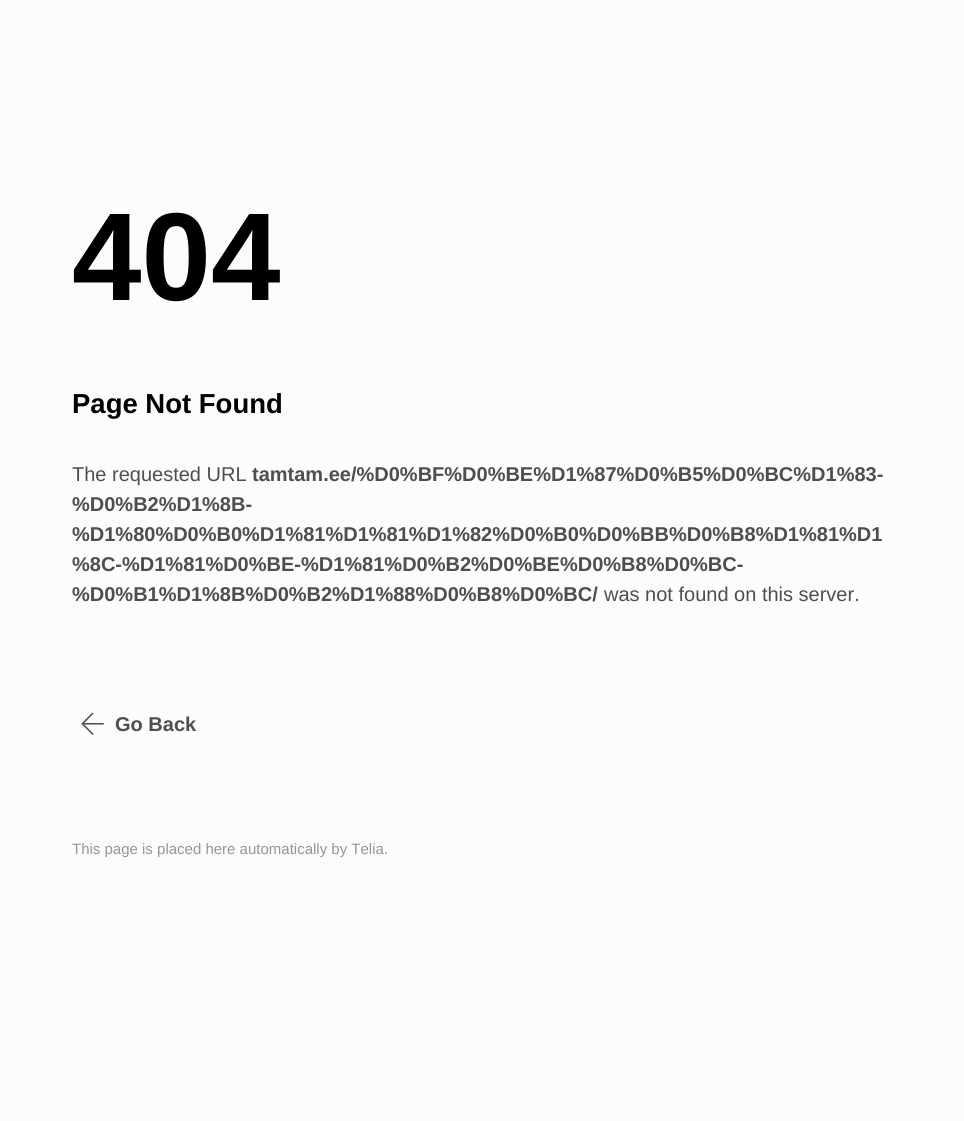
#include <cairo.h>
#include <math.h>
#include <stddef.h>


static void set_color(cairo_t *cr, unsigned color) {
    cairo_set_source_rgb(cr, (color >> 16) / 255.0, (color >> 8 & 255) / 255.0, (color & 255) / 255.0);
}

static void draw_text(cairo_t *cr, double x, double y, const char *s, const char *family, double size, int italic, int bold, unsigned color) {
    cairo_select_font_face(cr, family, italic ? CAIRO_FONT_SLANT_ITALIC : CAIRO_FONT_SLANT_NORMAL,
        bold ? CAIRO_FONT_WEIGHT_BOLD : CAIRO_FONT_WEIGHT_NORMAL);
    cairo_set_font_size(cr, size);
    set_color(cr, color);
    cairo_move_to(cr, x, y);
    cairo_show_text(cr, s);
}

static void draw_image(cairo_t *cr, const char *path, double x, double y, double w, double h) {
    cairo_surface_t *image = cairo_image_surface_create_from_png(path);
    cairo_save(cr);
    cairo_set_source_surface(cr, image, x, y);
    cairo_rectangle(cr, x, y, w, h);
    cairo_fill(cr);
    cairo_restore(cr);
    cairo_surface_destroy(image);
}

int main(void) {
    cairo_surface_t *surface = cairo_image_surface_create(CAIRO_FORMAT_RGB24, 964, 1121);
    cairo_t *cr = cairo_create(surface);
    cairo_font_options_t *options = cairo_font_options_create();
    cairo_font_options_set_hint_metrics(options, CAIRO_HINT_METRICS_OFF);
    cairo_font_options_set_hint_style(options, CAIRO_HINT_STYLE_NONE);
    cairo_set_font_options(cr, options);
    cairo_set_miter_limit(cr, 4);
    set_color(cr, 0xFCFCFC);
    cairo_paint(cr);
    draw_text(cr, 72, 300, "404", "Liberation Sans", 125, 0, 1, 0x000000);
    draw_text(cr, 72, 413, "Page Not Found", "Liberation Sans", 27.5, 0, 1, 0x000000);
    draw_text(cr, 72, 481, "The requested URL", "Liberation Sans", 20, 0, 0, 0x4E4E4E);
    draw_text(cr, 252, 481, "tamtam.ee/%D0%BF%D0%BE%D1%87%D0%B5%D0%BC%D1%83-", "Liberation Sans", 20, 0, 1, 0x4E4E4E);
    draw_text(cr, 72, 511, "%D0%B2%D1%8B-", "Liberation Sans", 20, 0, 1, 0x4E4E4E);
    draw_text(cr, 72, 541, "%D1%80%D0%B0%D1%81%D1%81%D1%82%D0%B0%D0%BB%D0%B8%D1%81%D1", "Liberation Sans", 20, 0, 1, 0x4E4E4E);
    draw_text(cr, 72, 571, "%8C-%D1%81%D0%BE-%D1%81%D0%B2%D0%BE%D0%B8%D0%BC-", "Liberation Sans", 20, 0, 1, 0x4E4E4E);
    draw_text(cr, 72, 601, "%D0%B1%D1%8B%D0%B2%D1%88%D0%B8%D0%BC/", "Liberation Sans", 20, 0, 1, 0x4E4E4E);
    draw_text(cr, 604, 601, "was not found on this server.", "Liberation Sans", 20, 0, 0, 0x4E4E4E);
    draw_image(cr, "assets/img1.png", 81, 712, 23, 23);
    draw_text(cr, 115, 731, "Go Back", "Liberation Sans", 20, 0, 1, 0x4E4E4E);
    draw_text(cr, 72, 854, "This page is placed here automatically by Telia.", "Liberation Sans", 15, 0, 0, 0x959595);
    cairo_surface_write_to_png(surface, "output.png");
    cairo_font_options_destroy(options);
    cairo_destroy(cr);
    cairo_surface_destroy(surface);
    return 0;
}
